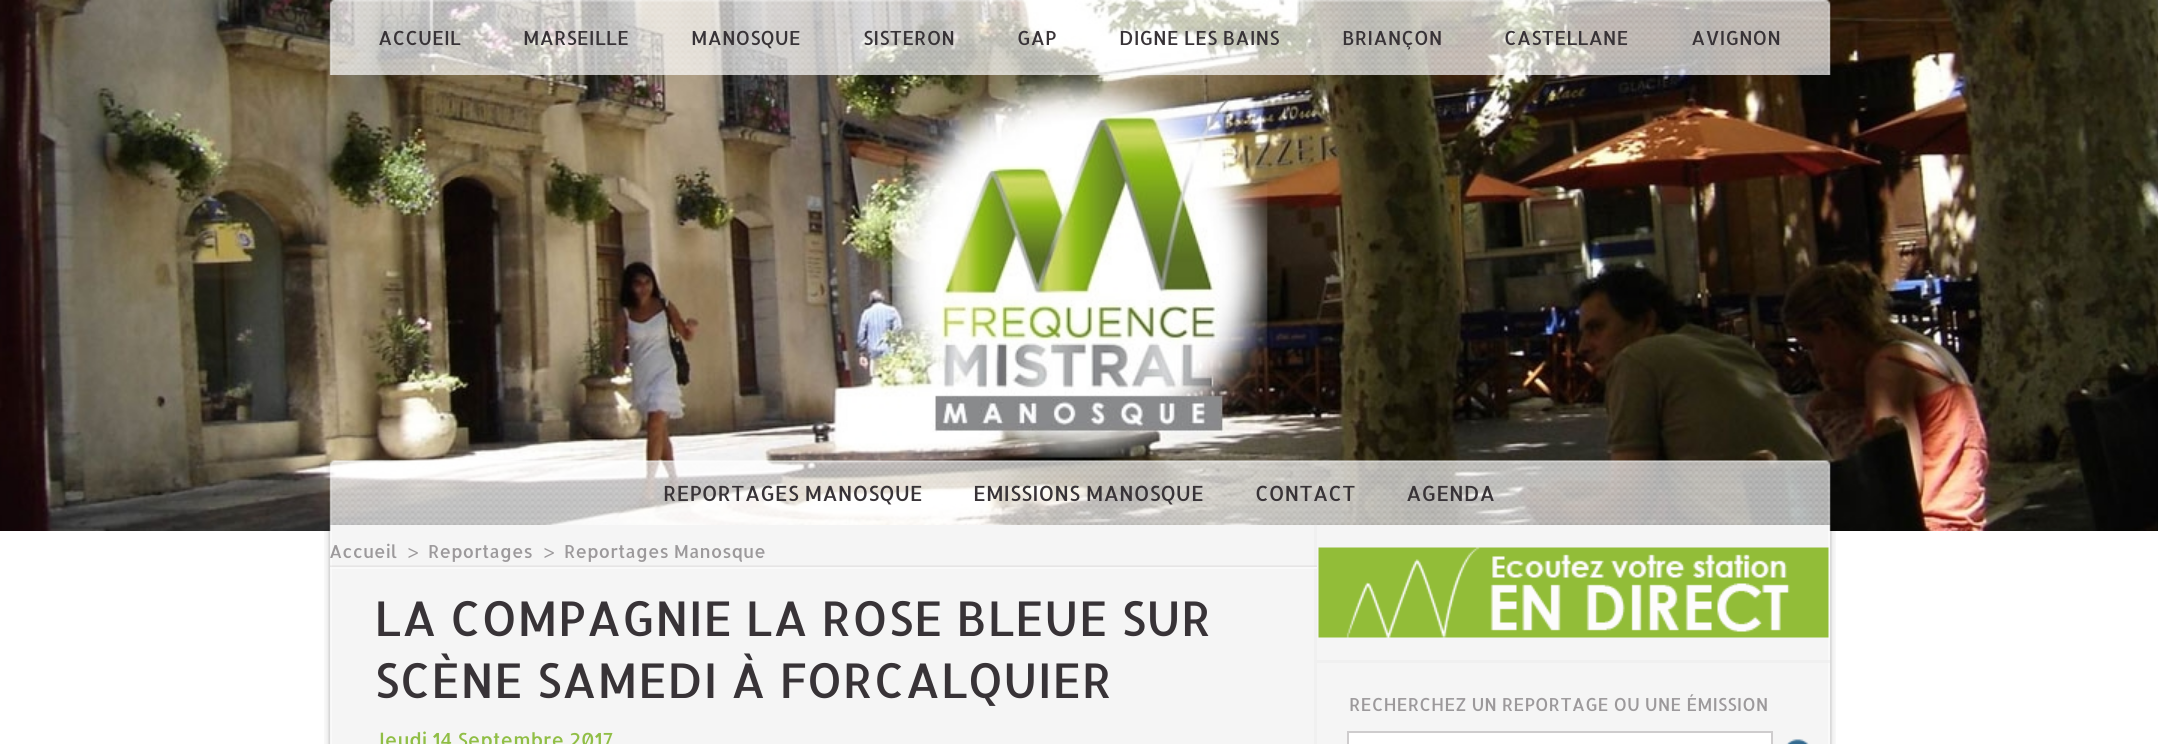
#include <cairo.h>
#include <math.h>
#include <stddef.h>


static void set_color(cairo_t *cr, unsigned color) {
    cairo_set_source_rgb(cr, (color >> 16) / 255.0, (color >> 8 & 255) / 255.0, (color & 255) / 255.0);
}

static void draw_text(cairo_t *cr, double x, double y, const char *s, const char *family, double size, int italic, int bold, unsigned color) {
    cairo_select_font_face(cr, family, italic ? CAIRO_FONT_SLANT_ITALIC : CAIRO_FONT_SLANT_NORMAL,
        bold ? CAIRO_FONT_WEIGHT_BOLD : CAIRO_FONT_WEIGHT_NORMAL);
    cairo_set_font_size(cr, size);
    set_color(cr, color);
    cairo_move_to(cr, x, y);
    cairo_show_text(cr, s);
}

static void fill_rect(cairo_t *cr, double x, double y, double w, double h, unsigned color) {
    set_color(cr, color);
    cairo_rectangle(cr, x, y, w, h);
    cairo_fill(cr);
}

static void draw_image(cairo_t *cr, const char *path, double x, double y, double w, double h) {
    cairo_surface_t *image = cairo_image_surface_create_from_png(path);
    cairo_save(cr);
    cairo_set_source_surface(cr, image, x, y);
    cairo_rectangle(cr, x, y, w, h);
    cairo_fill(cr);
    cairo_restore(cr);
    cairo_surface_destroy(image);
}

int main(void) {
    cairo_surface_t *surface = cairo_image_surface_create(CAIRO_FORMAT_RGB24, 2158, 744);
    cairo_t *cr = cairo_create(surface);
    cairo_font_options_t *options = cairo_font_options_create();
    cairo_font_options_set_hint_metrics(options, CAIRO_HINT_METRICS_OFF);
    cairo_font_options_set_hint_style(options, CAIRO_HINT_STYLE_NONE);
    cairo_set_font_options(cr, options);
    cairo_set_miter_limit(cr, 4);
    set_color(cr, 0xFFFFFF);
    cairo_paint(cr);
    draw_image(cr, "assets/img1.png", 0, 0, 2158, 531);
    draw_image(cr, "assets/img2.png", 327, 0, 1505, 75);
    draw_text(cr, 378, 45, "ACCUEIL", "Allerta", 19.5, 0, 0, 0x383337);
    draw_text(cr, 523, 45, "MARSEILLE", "Allerta", 19.5, 0, 0, 0x383337);
    draw_text(cr, 691, 45, "MANOSQUE", "Allerta", 19.5, 0, 0, 0x383337);
    draw_text(cr, 863, 45, "SISTERON", "Allerta", 19.5, 0, 0, 0x383337);
    draw_text(cr, 1017, 45, "GAP", "Allerta", 19.5, 0, 0, 0x383337);
    draw_text(cr, 1119, 45, "DIGNE LES BAINS", "Allerta", 19.5, 0, 0, 0x383337);
    draw_text(cr, 1342, 45, "BRIANÇON", "Allerta", 19.5, 0, 0, 0x383337);
    draw_text(cr, 1504, 45, "CASTELLANE", "Allerta", 19.5, 0, 0, 0x383337);
    draw_text(cr, 1691, 45, "AVIGNON", "Allerta", 19.5, 0, 0, 0x383337);
    draw_image(cr, "assets/img3.png", 326, 460, 1505, 65);
    draw_text(cr, 663, 501, "REPORTAGES MANOSQUE", "Allerta", 21, 0, 0, 0x383337);
    draw_text(cr, 973, 501, "EMISSIONS MANOSQUE", "Allerta", 21, 0, 0, 0x383337);
    draw_text(cr, 1255, 501, "CONTACT", "Allerta", 21, 0, 0, 0x383337);
    draw_text(cr, 1406, 501, "AGENDA", "Allerta", 21, 0, 0, 0x383337);
    draw_image(cr, "assets/img4.png", 324, 525, 1512, 219);
    fill_rect(cr, 1314, 525, 3, 219, 0xF0F0F0);
    draw_text(cr, 329, 558, "Accueil", "Allerta", 18, 0, 0, 0x9C999B);
    draw_text(cr, 407, 558, ">", "Allerta", 18, 0, 0, 0x9C999B);
    draw_text(cr, 428, 558, "Reportages", "Allerta", 18, 0, 0, 0x9C999B);
    draw_text(cr, 543, 558, ">", "Allerta", 18, 0, 0, 0x9C999B);
    draw_text(cr, 564, 558, "Reportages Manosque", "Allerta", 18, 0, 0, 0x9C999B);
    draw_image(cr, "assets/img5.png", 330, 565, 987, 4);
    draw_text(cr, 374, 636, "LA COMPAGNIE LA ROSE BLEUE SUR", "Allerta", 48, 0, 0, 0x383337);
    draw_text(cr, 374, 698, "SCÈNE SAMEDI À FORCALQUIER", "Allerta", 48, 0, 0, 0x383337);
    draw_text(cr, 374, 747, "Jeudi 14 Septembre 2017", "Allerta", 19.5, 0, 0, 0x90BE45);
    draw_image(cr, "assets/img6.png", 1318, 547, 511, 91);
    cairo_set_source_rgba(cr, 0.929, 0.929, 0.929, 0.6);
    cairo_rectangle(cr, 1317, 660, 513, 3);
    cairo_fill(cr);
    draw_text(cr, 1349, 711, "RECHERCHEZ UN REPORTAGE OU UNE ÉMISSION", "Allerta", 18, 0, 0, 0x9C999B);
    set_color(cr, 0xFFFFFF);
    cairo_rectangle(cr, 1348, 732, 424, 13);
    cairo_fill_preserve(cr);
    set_color(cr, 0xCECCCD);
    cairo_stroke(cr);
    draw_image(cr, "assets/img7.png", 1786, 739, 23, 5);
    cairo_surface_write_to_png(surface, "output.png");
    cairo_font_options_destroy(options);
    cairo_destroy(cr);
    cairo_surface_destroy(surface);
    return 0;
}
